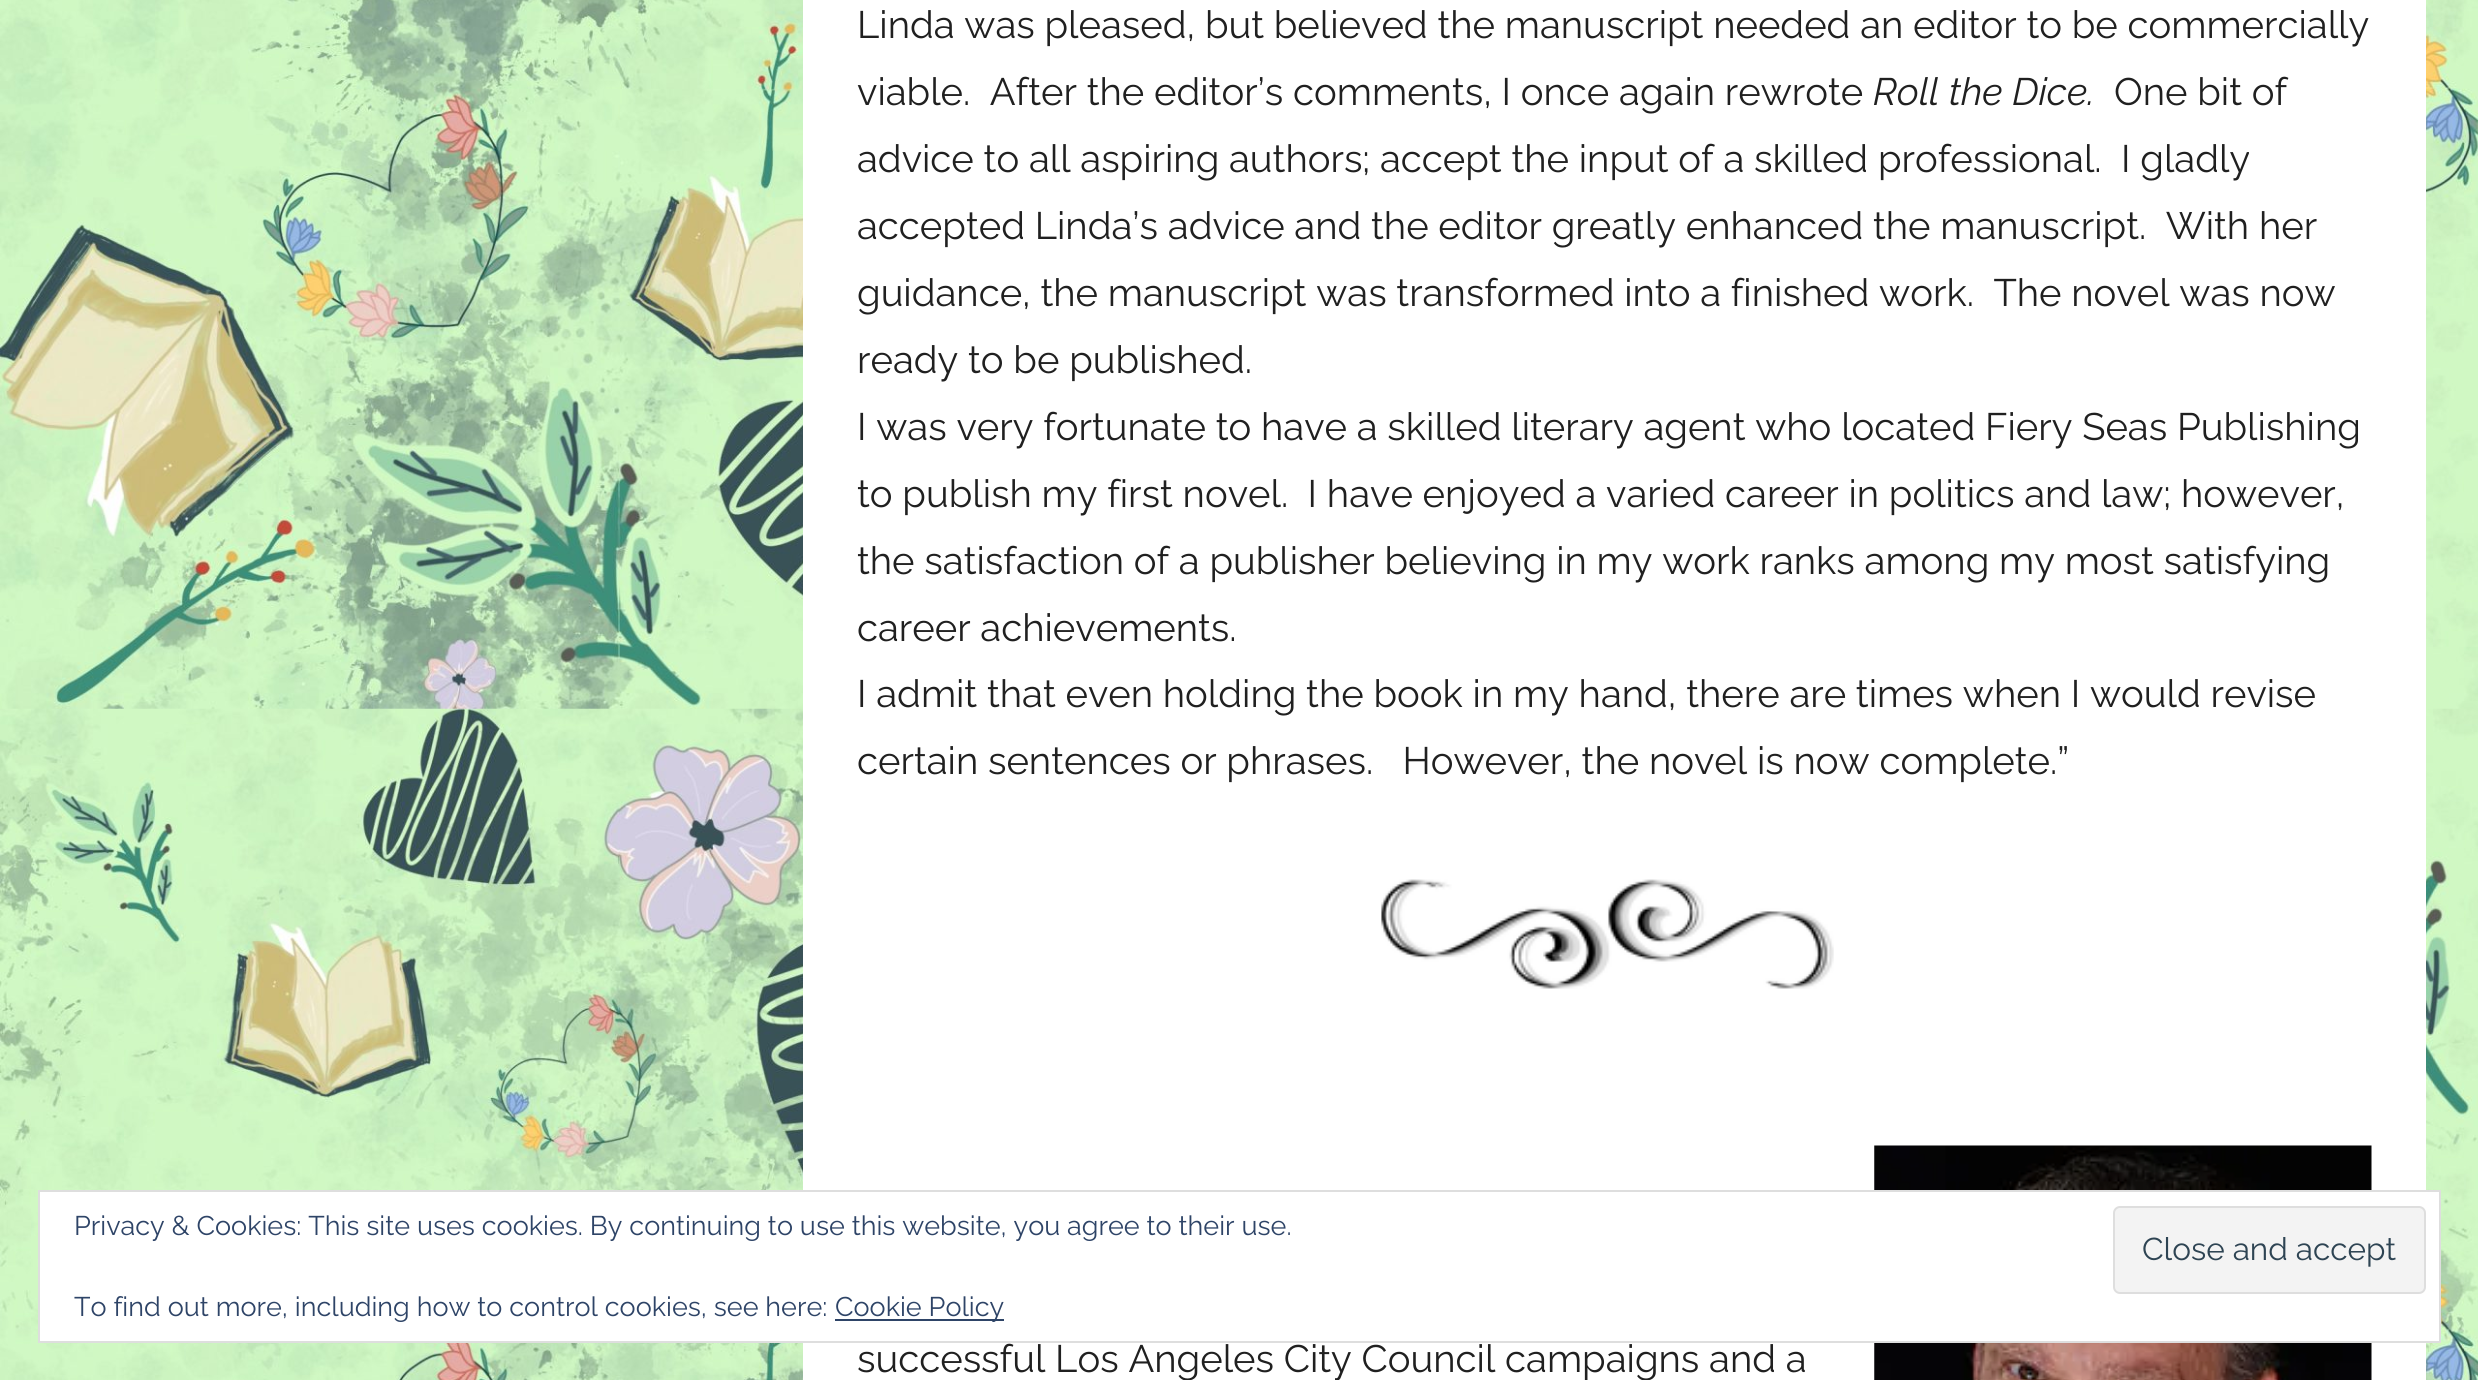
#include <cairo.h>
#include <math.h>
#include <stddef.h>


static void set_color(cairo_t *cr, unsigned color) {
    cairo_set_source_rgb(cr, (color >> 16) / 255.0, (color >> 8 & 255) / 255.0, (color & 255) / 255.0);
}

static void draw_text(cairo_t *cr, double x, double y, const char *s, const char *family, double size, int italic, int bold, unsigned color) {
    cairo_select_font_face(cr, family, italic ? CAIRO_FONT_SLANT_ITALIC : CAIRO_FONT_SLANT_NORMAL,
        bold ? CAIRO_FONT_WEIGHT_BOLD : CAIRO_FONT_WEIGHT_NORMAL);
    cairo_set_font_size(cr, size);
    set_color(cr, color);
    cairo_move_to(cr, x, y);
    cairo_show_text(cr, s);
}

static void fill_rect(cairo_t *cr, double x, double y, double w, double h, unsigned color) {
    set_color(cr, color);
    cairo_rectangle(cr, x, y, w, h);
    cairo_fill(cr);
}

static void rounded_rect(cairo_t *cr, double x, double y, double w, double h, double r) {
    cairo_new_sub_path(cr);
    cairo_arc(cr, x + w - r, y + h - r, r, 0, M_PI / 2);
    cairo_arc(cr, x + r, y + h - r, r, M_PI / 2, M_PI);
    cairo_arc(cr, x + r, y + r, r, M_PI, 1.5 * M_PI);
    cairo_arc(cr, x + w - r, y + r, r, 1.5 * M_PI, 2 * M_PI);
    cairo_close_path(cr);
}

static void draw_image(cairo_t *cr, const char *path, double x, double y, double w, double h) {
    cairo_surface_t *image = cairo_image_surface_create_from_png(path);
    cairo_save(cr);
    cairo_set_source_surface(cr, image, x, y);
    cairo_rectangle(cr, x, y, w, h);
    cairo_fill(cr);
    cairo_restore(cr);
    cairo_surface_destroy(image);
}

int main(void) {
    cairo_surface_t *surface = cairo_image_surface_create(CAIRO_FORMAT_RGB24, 2478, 1380);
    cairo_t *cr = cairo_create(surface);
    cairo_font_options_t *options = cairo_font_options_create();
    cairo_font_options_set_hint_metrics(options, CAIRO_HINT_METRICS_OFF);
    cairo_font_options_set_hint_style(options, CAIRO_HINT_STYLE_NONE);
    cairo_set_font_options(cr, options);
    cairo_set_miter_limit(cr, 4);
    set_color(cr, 0xFFFFFF);
    cairo_paint(cr);
    draw_image(cr, "assets/img1.png", 0, 0, 2478, 1380);
    fill_rect(cr, 803, 0, 1623, 1380, 0xFFFFFF);
    draw_text(cr, 857, 38, "Linda was pleased, but believed the manuscript needed an editor to be commercially", "Raleway Thin", 38.25, 0, 0, 0x202020);
    draw_text(cr, 857, 105, "viable.  After the editor’s comments, I once again rewrote", "Raleway Thin", 38.25, 0, 0, 0x202020);
    draw_text(cr, 1873, 105, "Roll the Dice.", "Raleway Thin", 38.25, 1, 0, 0x202020);
    draw_text(cr, 2114, 105, "One bit of", "Raleway Thin", 38.25, 0, 0, 0x202020);
    draw_text(cr, 857, 172, "advice to all aspiring authors; accept the input of a skilled professional.  I gladly", "Raleway Thin", 38.25, 0, 0, 0x202020);
    draw_text(cr, 857, 239, "accepted Linda’s advice and the editor greatly enhanced the manuscript.  With her", "Raleway Thin", 38.25, 0, 0, 0x202020);
    draw_text(cr, 857, 306, "guidance, the manuscript was transformed into a finished work.  The novel was now", "Raleway Thin", 38.25, 0, 0, 0x202020);
    draw_text(cr, 857, 373, "ready to be published.", "Raleway Thin", 38.25, 0, 0, 0x202020);
    draw_text(cr, 857, 440, "I was very fortunate to have a skilled literary agent who located Fiery Seas Publishing", "Raleway Thin", 38.25, 0, 0, 0x202020);
    draw_text(cr, 857, 507, "to publish my first novel.  I have enjoyed a varied career in politics and law; however,", "Raleway Thin", 38.25, 0, 0, 0x202020);
    draw_text(cr, 857, 574, "the satisfaction of a publisher believing in my work ranks among my most satisfying", "Raleway Thin", 38.25, 0, 0, 0x202020);
    draw_text(cr, 857, 641, "career achievements.", "Raleway Thin", 38.25, 0, 0, 0x202020);
    draw_text(cr, 857, 707, "I admit that even holding the book in my hand, there are times when I would revise", "Raleway Thin", 38.25, 0, 0, 0x202020);
    draw_text(cr, 857, 774, "certain sentences or phrases.   However, the novel is now complete.”", "Raleway Thin", 38.25, 0, 0, 0x202020);
    draw_image(cr, "assets/img2.png", 1381, 879, 453, 110);
    draw_text(cr, 857, 1372, "successful Los Angeles City Council campaigns and a", "Raleway Thin", 38.25, 0, 0, 0x202020);
    draw_image(cr, "assets/img3.png", 1874, 1145, 498, 235);
    set_color(cr, 0xFFFFFF);
    cairo_rectangle(cr, 39, 1191, 2401, 151);
    cairo_fill_preserve(cr);
    set_color(cr, 0xDEDEDE);
    cairo_stroke(cr);
    draw_text(cr, 74, 1235, "Privacy & Cookies: This site uses cookies. By continuing to use this website, you agree to their use.", "Raleway Thin", 27, 0, 0, 0x2E4467);
    set_color(cr, 0xF3F3F3);
    rounded_rect(cr, 2114, 1207, 311, 86, 6);
    cairo_fill_preserve(cr);
    set_color(cr, 0xDEDEDE);
    cairo_stroke(cr);
    draw_text(cr, 2142, 1260, "Close and accept", "Raleway Thin", 31.5, 0, 0, 0x2E4453);
    draw_text(cr, 74, 1316, "To find out more, including how to control cookies, see here:", "Raleway Thin", 27, 0, 0, 0x2E4467);
    fill_rect(cr, 835, 1319, 169, 2, 0x2E4467);
    draw_text(cr, 835, 1316, "Cookie Policy", "Raleway Thin", 27, 0, 0, 0x2E4467);
    cairo_surface_write_to_png(surface, "output.png");
    cairo_font_options_destroy(options);
    cairo_destroy(cr);
    cairo_surface_destroy(surface);
    return 0;
}
